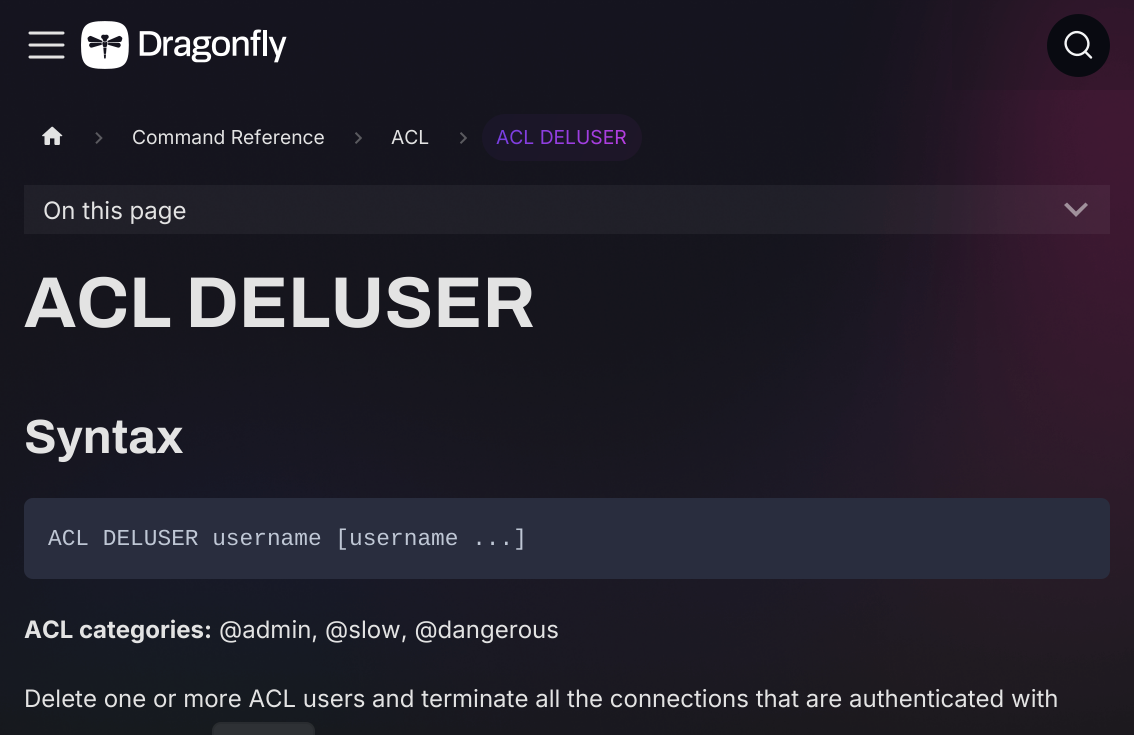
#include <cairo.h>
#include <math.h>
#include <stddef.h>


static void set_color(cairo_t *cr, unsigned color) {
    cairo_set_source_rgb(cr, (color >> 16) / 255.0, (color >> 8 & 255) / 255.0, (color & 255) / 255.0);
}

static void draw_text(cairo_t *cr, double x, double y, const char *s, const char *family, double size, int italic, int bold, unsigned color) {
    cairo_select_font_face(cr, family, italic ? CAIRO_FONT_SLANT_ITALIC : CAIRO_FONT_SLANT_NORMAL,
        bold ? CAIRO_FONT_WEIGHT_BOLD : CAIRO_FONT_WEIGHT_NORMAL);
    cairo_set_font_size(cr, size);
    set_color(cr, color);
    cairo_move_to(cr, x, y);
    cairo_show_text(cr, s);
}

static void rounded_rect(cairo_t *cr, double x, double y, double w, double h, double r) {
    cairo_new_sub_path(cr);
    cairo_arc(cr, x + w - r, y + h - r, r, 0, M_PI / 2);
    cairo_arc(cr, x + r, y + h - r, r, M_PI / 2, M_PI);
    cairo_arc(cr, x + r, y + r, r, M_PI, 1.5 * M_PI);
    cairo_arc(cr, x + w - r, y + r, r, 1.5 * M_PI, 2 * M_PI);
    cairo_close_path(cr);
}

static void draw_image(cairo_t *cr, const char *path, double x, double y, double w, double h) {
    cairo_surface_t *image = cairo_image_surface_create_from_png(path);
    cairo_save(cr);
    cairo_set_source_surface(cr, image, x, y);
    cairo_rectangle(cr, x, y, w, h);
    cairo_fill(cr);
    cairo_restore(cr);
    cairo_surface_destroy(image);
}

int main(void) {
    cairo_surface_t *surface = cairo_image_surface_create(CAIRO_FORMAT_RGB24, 1134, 735);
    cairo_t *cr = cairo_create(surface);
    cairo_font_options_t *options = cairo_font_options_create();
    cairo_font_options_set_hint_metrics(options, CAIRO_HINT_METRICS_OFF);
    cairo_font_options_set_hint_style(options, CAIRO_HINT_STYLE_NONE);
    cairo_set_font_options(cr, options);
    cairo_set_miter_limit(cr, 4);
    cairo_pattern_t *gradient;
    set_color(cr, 0xFFFFFF);
    cairo_paint(cr);
    draw_image(cr, "assets/img1.png", 0, 0, 1134, 735);
    cairo_set_source_rgba(cr, 0.09, 0.09, 0.102, 0.2);
    cairo_rectangle(cr, 952, 0, 182, 90);
    cairo_fill(cr);
    cairo_new_path(cr);
    cairo_move_to(cr, 30, 33);
    cairo_line_to(cr, 63, 33);
    cairo_move_to(cr, 30, 45);
    cairo_line_to(cr, 63, 45);
    cairo_move_to(cr, 30, 57);
    cairo_line_to(cr, 63, 57);
    set_color(cr, 0xE3E3E3);
    cairo_set_line_width(cr, 3);
    cairo_set_line_cap(cr, CAIRO_LINE_CAP_ROUND);
    cairo_stroke(cr);
    draw_image(cr, "assets/img2.png", 81, 21, 206, 48);
    set_color(cr, 0x090A11);
    cairo_arc(cr, 1078.5, 45.5, 31.5, 0, 2 * M_PI);
    cairo_fill(cr);
    cairo_new_path(cr);
    cairo_move_to(cr, 1085, 51.5);
    cairo_line_to(cr, 1091, 57.5);
    cairo_line_to(cr, 1085, 51.5);
    cairo_curve_to(cr, 1074.5, 62, 1058.5, 46, 1069, 35.5);
    cairo_curve_to(cr, 1079.5, 25, 1095.5, 41, 1085, 51.5);
    cairo_close_path(cr);
    set_color(cr, 0xF5F6F7);
    cairo_set_line_width(cr, 2.4);
    cairo_set_line_join(cr, CAIRO_LINE_JOIN_ROUND);
    cairo_stroke(cr);
    draw_image(cr, "assets/img3.png", 42, 126, 21, 19);
    draw_image(cr, "assets/img4.png", 95, 132, 8, 12);
    draw_text(cr, 132, 144, "Command Reference", "Inter", 19.25, 0, 0, 0xE3E3E3);
    draw_image(cr, "assets/img5.png", 355, 132, 7, 12);
    draw_text(cr, 391, 144, "ACL", "Inter", 19.25, 0, 0, 0xE3E3E3);
    draw_image(cr, "assets/img6.png", 460, 132, 7, 12);
    gradient = cairo_pattern_create_linear(461, 89, 642, 175);
    cairo_pattern_add_color_stop_rgba(gradient, 0, 0.098, 0.086, 0.157, 1);
    cairo_pattern_add_color_stop_rgba(gradient, 1, 0.118, 0.086, 0.157, 1);
    cairo_set_source(cr, gradient);
    cairo_pattern_destroy(gradient);
    rounded_rect(cr, 482, 114, 160, 47, 23.5);
    cairo_fill(cr);
    gradient = cairo_pattern_create_linear(460, 90, 642, 176);
    cairo_pattern_add_color_stop_rgba(gradient, 0, 0.353, 0.243, 0.878, 1);
    cairo_pattern_add_color_stop_rgba(gradient, 1, 0.773, 0.243, 0.878, 1);
    cairo_set_source(cr, gradient);
    cairo_pattern_destroy(gradient);
    cairo_move_to(cr, 496, 144);
    cairo_show_text(cr, "ACL DELUSER");
    cairo_set_source_rgba(cr, 1, 1, 1, 0.05);
    cairo_rectangle(cr, 24, 185, 1086, 49);
    cairo_fill(cr);
    draw_text(cr, 43, 219, "On this page", "Inter", 24, 0, 0, 0xE3E3E3);
    set_color(cr, 0xA0909B);
    cairo_new_path(cr);
    cairo_move_to(cr, 1085.5, 202.5);
    cairo_line_to(cr, 1076, 211.5);
    cairo_line_to(cr, 1067, 202.5);
    cairo_line_to(cr, 1064, 205);
    cairo_line_to(cr, 1076, 217);
    cairo_line_to(cr, 1088, 205);
    cairo_close_path(cr);
    cairo_fill(cr);
    draw_text(cr, 24, 327, "ACL DELUSER", "Archivo", 72, 0, 1, 0xE3E3E3);
    draw_text(cr, 24, 453, "Syntax", "Archivo", 48, 0, 1, 0xE3E3E3);
    set_color(cr, 0x292D3E);
    rounded_rect(cr, 24, 498, 1086, 81, 9);
    cairo_fill(cr);
    draw_text(cr, 48, 545, "ACL DELUSER username [username ...]", "Liberation Mono", 22.8, 0, 0, 0xBFC7D5);
    draw_text(cr, 24, 638, "ACL categories:", "Inter", 24, 0, 1, 0xE3E3E3);
    draw_text(cr, 219, 638, "@admin, @slow, @dangerous", "Inter", 24, 0, 0, 0xE3E3E3);
    draw_text(cr, 24, 707, "Delete one or more ACL users and terminate all the connections that are authenticated with", "Inter", 24, 0, 0, 0xE3E3E3);
    set_color(cr, 0x2E3135);
    rounded_rect(cr, 212, 722, 103, 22, 9);
    cairo_fill(cr);
    rounded_rect(cr, 213, 723, 101, 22, 8);
    cairo_set_source_rgba(cr, 0, 0, 0, 0.1);
    cairo_set_line_width(cr, 2);
    cairo_set_line_cap(cr, CAIRO_LINE_CAP_BUTT);
    cairo_set_line_join(cr, CAIRO_LINE_JOIN_MITER);
    cairo_stroke(cr);
    cairo_surface_write_to_png(surface, "output.png");
    cairo_font_options_destroy(options);
    cairo_destroy(cr);
    cairo_surface_destroy(surface);
    return 0;
}
